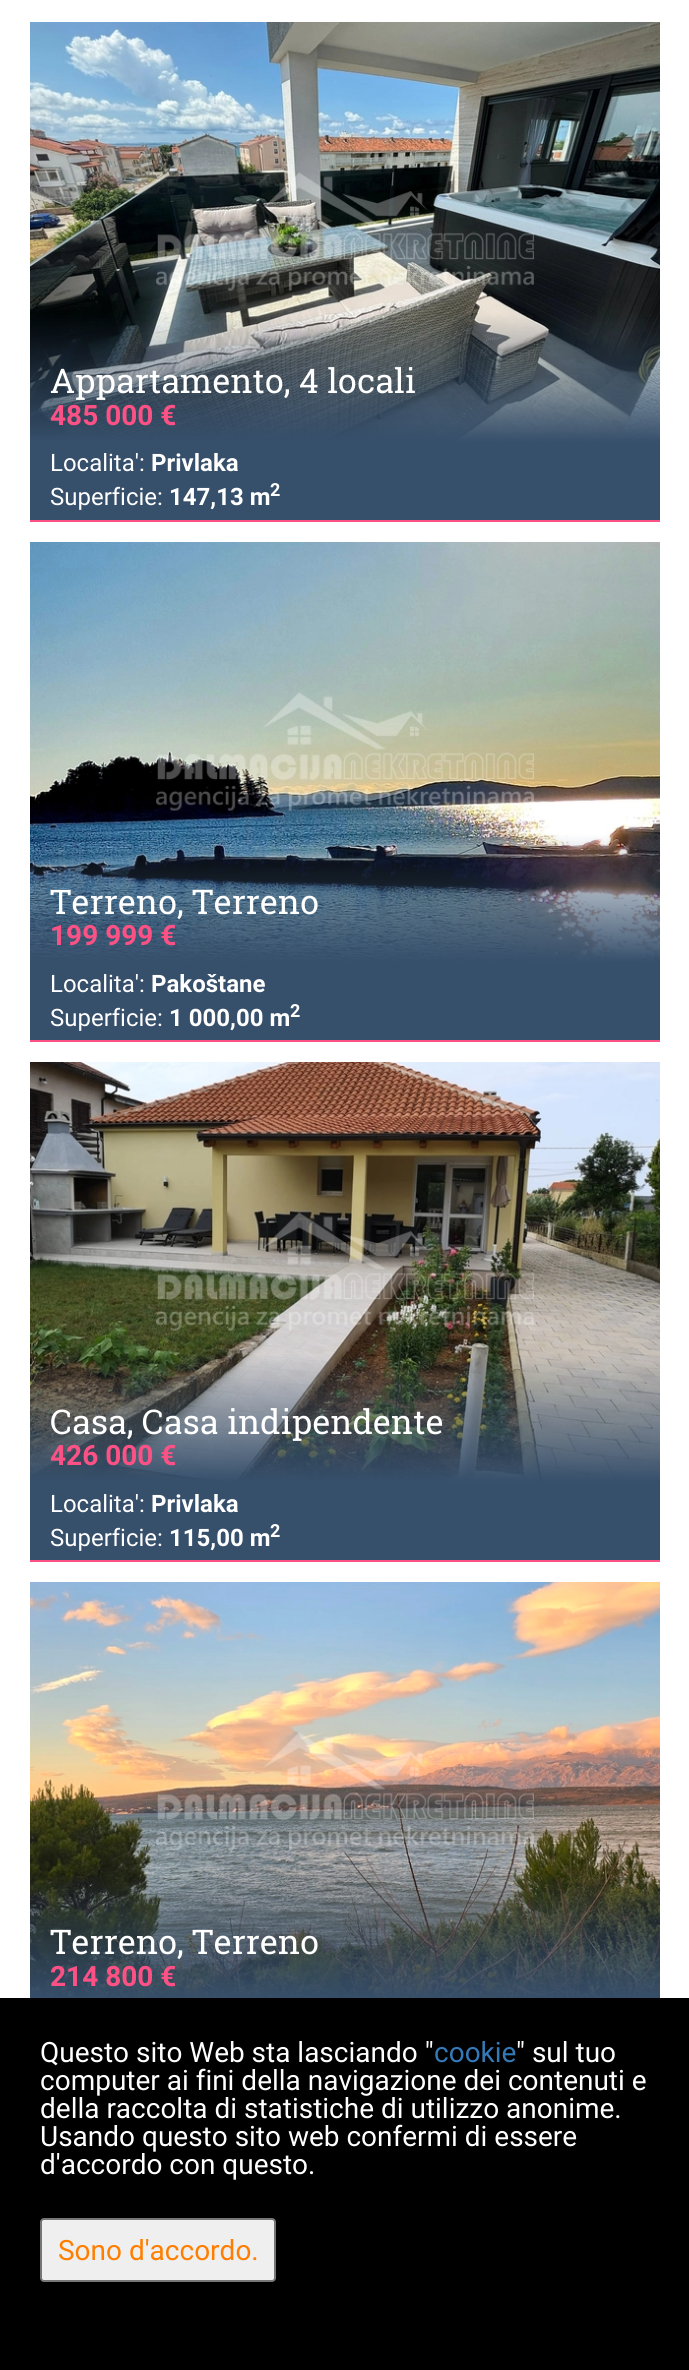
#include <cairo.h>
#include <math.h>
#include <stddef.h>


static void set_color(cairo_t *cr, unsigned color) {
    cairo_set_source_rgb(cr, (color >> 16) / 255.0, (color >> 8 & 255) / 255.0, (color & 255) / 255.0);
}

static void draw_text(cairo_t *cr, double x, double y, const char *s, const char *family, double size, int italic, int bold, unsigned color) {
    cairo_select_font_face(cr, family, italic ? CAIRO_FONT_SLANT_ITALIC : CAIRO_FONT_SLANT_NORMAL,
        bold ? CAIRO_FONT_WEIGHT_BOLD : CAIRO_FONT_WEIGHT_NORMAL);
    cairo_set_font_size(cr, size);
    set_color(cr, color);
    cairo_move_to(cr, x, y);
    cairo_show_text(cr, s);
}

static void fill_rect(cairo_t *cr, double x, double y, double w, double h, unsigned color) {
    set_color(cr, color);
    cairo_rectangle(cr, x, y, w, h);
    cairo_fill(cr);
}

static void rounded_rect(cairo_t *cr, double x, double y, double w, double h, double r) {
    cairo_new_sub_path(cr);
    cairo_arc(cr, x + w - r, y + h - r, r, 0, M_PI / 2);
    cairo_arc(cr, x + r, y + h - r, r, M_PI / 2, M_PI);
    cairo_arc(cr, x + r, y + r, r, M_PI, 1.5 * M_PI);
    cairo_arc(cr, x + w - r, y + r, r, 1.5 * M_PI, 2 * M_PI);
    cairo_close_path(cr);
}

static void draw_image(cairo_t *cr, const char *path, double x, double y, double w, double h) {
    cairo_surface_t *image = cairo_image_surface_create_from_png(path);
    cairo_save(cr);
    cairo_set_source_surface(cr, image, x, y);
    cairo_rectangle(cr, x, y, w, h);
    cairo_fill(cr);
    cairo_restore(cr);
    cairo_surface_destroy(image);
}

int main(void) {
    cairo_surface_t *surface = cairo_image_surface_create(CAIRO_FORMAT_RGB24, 689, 2370);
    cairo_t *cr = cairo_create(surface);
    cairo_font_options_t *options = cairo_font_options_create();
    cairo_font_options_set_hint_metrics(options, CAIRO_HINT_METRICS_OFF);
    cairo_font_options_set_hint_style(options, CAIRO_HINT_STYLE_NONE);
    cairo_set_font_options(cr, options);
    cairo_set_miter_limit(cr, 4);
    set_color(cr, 0xFFFFFF);
    cairo_paint(cr);
    draw_image(cr, "assets/img1.png", 30, 22, 630, 420);
    draw_text(cr, 50, 393, "Appartamento, 4 locali", "Roboto Slab", 34, 0, 0, 0xFFFFFF);
    draw_text(cr, 50, 425, "485 000 €", "Roboto", 28, 0, 1, 0xFC5185);
    fill_rect(cr, 30, 442, 630, 78, 0x364F6B);
    fill_rect(cr, 30, 520, 630, 2, 0xFC5185);
    draw_text(cr, 50, 471, "Localita':", "Roboto", 24, 0, 0, 0xFFFFFF);
    draw_text(cr, 151, 471, "Privlaka", "Roboto", 24, 0, 1, 0xFFFFFF);
    draw_text(cr, 50, 505, "Superficie:", "Roboto", 24, 0, 0, 0xFFFFFF);
    draw_text(cr, 169, 505, "147,13 m", "Roboto", 24, 0, 1, 0xFFFFFF);
    draw_text(cr, 270, 496, "2", "Roboto", 18, 0, 1, 0xFFFFFF);
    draw_image(cr, "assets/img2.png", 30, 542, 630, 420);
    draw_text(cr, 50, 914, "Terreno, Terreno", "Roboto Slab", 34, 0, 0, 0xFFFFFF);
    draw_text(cr, 50, 945, "199 999 €", "Roboto", 28, 0, 1, 0xFC5185);
    fill_rect(cr, 30, 962, 630, 78, 0x364F6B);
    fill_rect(cr, 30, 1040, 630, 2, 0xFC5185);
    draw_text(cr, 50, 992, "Localita':", "Roboto", 24, 0, 0, 0xFFFFFF);
    draw_text(cr, 151, 992, "Pakoštane", "Roboto", 24, 0, 1, 0xFFFFFF);
    draw_text(cr, 50, 1026, "Superficie:", "Roboto", 24, 0, 0, 0xFFFFFF);
    draw_text(cr, 169, 1026, "1 000,00 m", "Roboto", 24, 0, 1, 0xFFFFFF);
    draw_text(cr, 290, 1017, "2", "Roboto", 18, 0, 1, 0xFFFFFF);
    draw_image(cr, "assets/img3.png", 30, 1062, 630, 420);
    draw_text(cr, 50, 1434, "Casa, Casa indipendente", "Roboto Slab", 34, 0, 0, 0xFFFFFF);
    draw_text(cr, 50, 1465, "426 000 €", "Roboto", 28, 0, 1, 0xFC5185);
    fill_rect(cr, 30, 1482, 630, 78, 0x364F6B);
    fill_rect(cr, 30, 1560, 630, 2, 0xFC5185);
    draw_text(cr, 50, 1512, "Localita':", "Roboto", 24, 0, 0, 0xFFFFFF);
    draw_text(cr, 151, 1512, "Privlaka", "Roboto", 24, 0, 1, 0xFFFFFF);
    draw_text(cr, 50, 1546, "Superficie:", "Roboto", 24, 0, 0, 0xFFFFFF);
    draw_text(cr, 169, 1546, "115,00 m", "Roboto", 24, 0, 1, 0xFFFFFF);
    draw_text(cr, 270, 1537, "2", "Roboto", 18, 0, 1, 0xFFFFFF);
    draw_image(cr, "assets/img4.png", 30, 1582, 630, 416);
    draw_text(cr, 50, 1954, "Terreno, Terreno", "Roboto Slab", 34, 0, 0, 0xFFFFFF);
    draw_text(cr, 50, 1986, "214 800 €", "Roboto", 28, 0, 1, 0xFC5185);
    fill_rect(cr, 0, 1998, 689, 372, 0x000000);
    draw_text(cr, 40, 2062, "Questo sito Web sta lasciando \"", "Roboto", 28, 0, 0, 0xFFFFFF);
    draw_text(cr, 434, 2062, "cookie", "Roboto", 28, 0, 0, 0x337AB7);
    draw_text(cr, 516, 2062, "\" sul tuo", "Roboto", 28, 0, 0, 0xFFFFFF);
    draw_text(cr, 40, 2090, "computer ai fini della navigazione dei contenuti e", "Roboto", 28, 0, 0, 0xFFFFFF);
    draw_text(cr, 40, 2118, "della raccolta di statistiche di utilizzo anonime.", "Roboto", 28, 0, 0, 0xFFFFFF);
    draw_text(cr, 40, 2146, "Usando questo sito web confermi di essere", "Roboto", 28, 0, 0, 0xFFFFFF);
    draw_text(cr, 40, 2174, "d'accordo con questo.", "Roboto", 28, 0, 0, 0xFFFFFF);
    set_color(cr, 0xEFEFEF);
    rounded_rect(cr, 41, 2219, 234, 62, 3);
    cairo_fill_preserve(cr);
    set_color(cr, 0x767676);
    cairo_stroke(cr);
    draw_text(cr, 58, 2260, "Sono d'accordo.", "Roboto", 28, 0, 0, 0xFF7E00);
    cairo_surface_write_to_png(surface, "output.png");
    cairo_font_options_destroy(options);
    cairo_destroy(cr);
    cairo_surface_destroy(surface);
    return 0;
}
